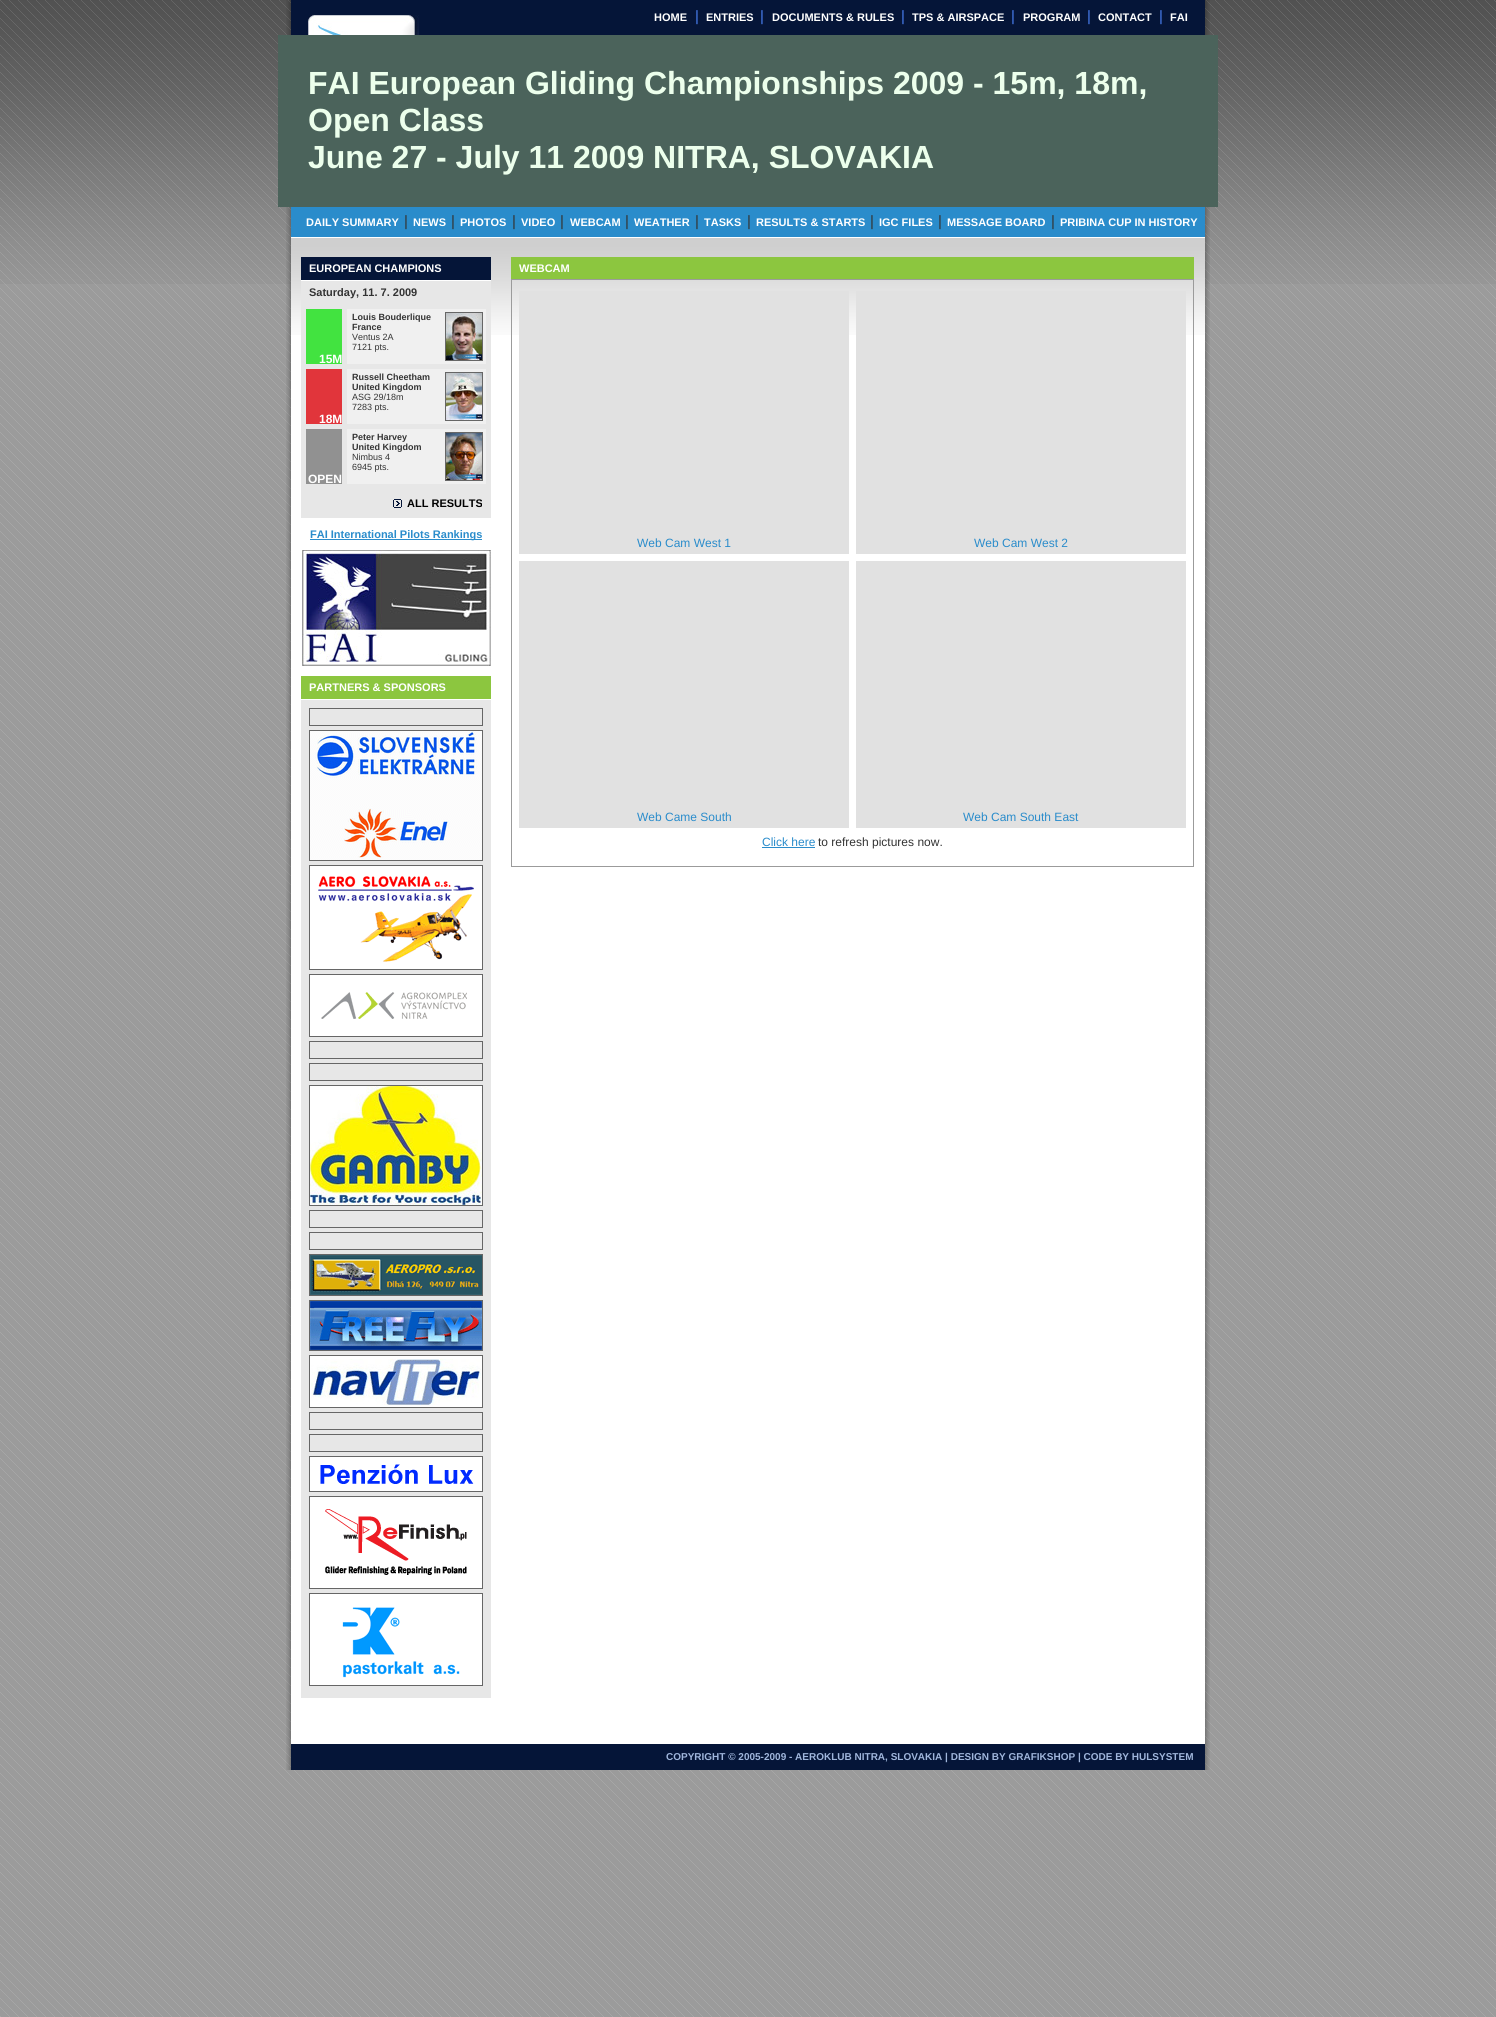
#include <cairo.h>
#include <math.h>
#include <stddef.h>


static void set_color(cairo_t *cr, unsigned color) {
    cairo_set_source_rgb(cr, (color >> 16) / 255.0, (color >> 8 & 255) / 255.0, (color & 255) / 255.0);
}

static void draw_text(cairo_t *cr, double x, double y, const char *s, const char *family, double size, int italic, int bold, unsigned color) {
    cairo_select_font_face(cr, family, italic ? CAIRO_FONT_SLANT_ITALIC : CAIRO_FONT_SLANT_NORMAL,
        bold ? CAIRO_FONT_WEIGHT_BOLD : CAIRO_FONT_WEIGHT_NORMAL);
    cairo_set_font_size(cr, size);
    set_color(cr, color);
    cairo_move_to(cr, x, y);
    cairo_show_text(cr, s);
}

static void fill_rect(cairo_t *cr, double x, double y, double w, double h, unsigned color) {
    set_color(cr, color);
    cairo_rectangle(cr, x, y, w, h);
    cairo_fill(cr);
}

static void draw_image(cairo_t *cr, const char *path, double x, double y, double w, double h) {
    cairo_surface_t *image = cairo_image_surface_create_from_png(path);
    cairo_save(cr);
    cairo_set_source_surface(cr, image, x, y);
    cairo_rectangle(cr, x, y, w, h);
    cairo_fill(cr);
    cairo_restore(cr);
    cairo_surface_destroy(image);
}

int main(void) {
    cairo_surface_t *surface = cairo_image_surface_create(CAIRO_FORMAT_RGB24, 1496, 2017);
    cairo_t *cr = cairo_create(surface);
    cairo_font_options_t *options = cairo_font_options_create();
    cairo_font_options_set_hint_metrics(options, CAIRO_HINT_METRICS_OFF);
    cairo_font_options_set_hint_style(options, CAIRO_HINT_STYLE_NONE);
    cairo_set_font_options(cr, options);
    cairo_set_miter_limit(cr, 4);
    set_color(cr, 0xFFFFFF);
    cairo_paint(cr);
    draw_image(cr, "assets/img1.png", 0, 1770, 1496, 247);
    draw_image(cr, "assets/img2.png", 0, 284, 1496, 1486);
    draw_image(cr, "assets/img3.png", 0, 0, 1496, 284);
    draw_image(cr, "assets/img4.png", 286, 0, 5, 35);
    draw_image(cr, "assets/img5.png", 1205, 0, 5, 35);
    fill_rect(cr, 291, 0, 914, 35, 0x051538);
    draw_image(cr, "assets/img6.png", 308, 15, 111, 20);
    draw_text(cr, 654, 21, "HOME", "Liberation Sans", 11, 0, 1, 0xFFFFFF);
    draw_text(cr, 695, 21, "|", "Liberation Sans", 15, 0, 0, 0x467CEE);
    draw_text(cr, 706, 21, "ENTRIES", "Liberation Sans", 11, 0, 1, 0xFFFFFF);
    draw_text(cr, 760, 21, "|", "Liberation Sans", 15, 0, 0, 0x467CEE);
    draw_text(cr, 772, 21, "DOCUMENTS & RULES", "Liberation Sans", 11, 0, 1, 0xFFFFFF);
    draw_text(cr, 901, 21, "|", "Liberation Sans", 15, 0, 0, 0x467CEE);
    draw_text(cr, 912, 21, "TPS & AIRSPACE", "Liberation Sans", 11, 0, 1, 0xFFFFFF);
    draw_text(cr, 1011, 21, "|", "Liberation Sans", 15, 0, 0, 0x467CEE);
    draw_text(cr, 1023, 21, "PROGRAM", "Liberation Sans", 11, 0, 1, 0xFFFFFF);
    draw_text(cr, 1087, 21, "|", "Liberation Sans", 15, 0, 0, 0x467CEE);
    draw_text(cr, 1098, 21, "CONTACT", "Liberation Sans", 11, 0, 1, 0xFFFFFF);
    draw_text(cr, 1159, 21, "|", "Liberation Sans", 15, 0, 0, 0x467CEE);
    draw_text(cr, 1170, 21, "FAI", "Liberation Sans", 11, 0, 1, 0xFFFFFF);
    fill_rect(cr, 278, 35, 940, 172, 0x4B635B);
    draw_text(cr, 308, 94, "FAI European Gliding Championships 2009 - 15m, 18m,", "Liberation Sans", 32, 0, 1, 0xECFFEC);
    draw_text(cr, 308, 131, "Open Class", "Liberation Sans", 32, 0, 1, 0xECFFEC);
    draw_text(cr, 308, 168, "June 27 - July 11 2009 NITRA, SLOVAKIA", "Liberation Sans", 32, 0, 1, 0xECFFEC);
    draw_image(cr, "assets/img7.png", 286, 207, 5, 1563);
    draw_image(cr, "assets/img8.png", 1205, 207, 5, 1563);
    fill_rect(cr, 291, 207, 914, 30, 0x2A8CCB);
    draw_text(cr, 306, 226, "DAILY SUMMARY", "Liberation Sans", 11, 0, 1, 0xFFFFFF);
    draw_text(cr, 404, 226, "|", "Liberation Sans", 15, 0, 0, 0x333333);
    draw_text(cr, 413, 226, "NEWS", "Liberation Sans", 11, 0, 1, 0xFFFFFF);
    draw_text(cr, 451, 226, "|", "Liberation Sans", 15, 0, 0, 0x333333);
    draw_text(cr, 460, 226, "PHOTOS", "Liberation Sans", 11, 0, 1, 0xFFFFFF);
    draw_text(cr, 512, 226, "|", "Liberation Sans", 15, 0, 0, 0x333333);
    draw_text(cr, 521, 226, "VIDEO", "Liberation Sans", 11, 0, 1, 0xFFFFFF);
    draw_text(cr, 560, 226, "|", "Liberation Sans", 15, 0, 0, 0x333333);
    draw_text(cr, 570, 226, "WEBCAM", "Liberation Sans", 11, 0, 1, 0xFFFFFF);
    draw_text(cr, 625, 226, "|", "Liberation Sans", 15, 0, 0, 0x333333);
    draw_text(cr, 634, 226, "WEATHER", "Liberation Sans", 11, 0, 1, 0xFFFFFF);
    draw_text(cr, 695, 226, "|", "Liberation Sans", 15, 0, 0, 0x333333);
    draw_text(cr, 704, 226, "TASKS", "Liberation Sans", 11, 0, 1, 0xFFFFFF);
    draw_text(cr, 747, 226, "|", "Liberation Sans", 15, 0, 0, 0x333333);
    draw_text(cr, 756, 226, "RESULTS & STARTS", "Liberation Sans", 11, 0, 1, 0xFFFFFF);
    draw_text(cr, 870, 226, "|", "Liberation Sans", 15, 0, 0, 0x333333);
    draw_text(cr, 879, 226, "IGC FILES", "Liberation Sans", 11, 0, 1, 0xFFFFFF);
    draw_text(cr, 938, 226, "|", "Liberation Sans", 15, 0, 0, 0x333333);
    draw_text(cr, 947, 226, "MESSAGE BOARD", "Liberation Sans", 11, 0, 1, 0xFFFFFF);
    draw_text(cr, 1051, 226, "|", "Liberation Sans", 15, 0, 0, 0x333333);
    draw_text(cr, 1060, 226, "PRIBINA CUP IN HISTORY", "Liberation Sans", 11, 0, 1, 0xFFFFFF);
    fill_rect(cr, 291, 237, 914, 1507, 0xFFFFFF);
    draw_image(cr, "assets/img9.png", 291, 238, 914, 97);
    fill_rect(cr, 301, 281, 190, 237, 0xE7E7E7);
    fill_rect(cr, 301, 257, 190, 23, 0x051538);
    fill_rect(cr, 301, 280, 190, 1, 0xFFFFFF);
    draw_text(cr, 309, 272, "EUROPEAN CHAMPIONS", "Liberation Sans", 11, 0, 1, 0xFFFFFF);
    draw_text(cr, 309, 296, "Saturday, 11. 7. 2009", "Liberation Sans", 11, 0, 1, 0x333333);
    fill_rect(cr, 347, 309, 139, 55, 0xF0F0F0);
    draw_text(cr, 352, 320, "Louis Bouderlique", "Liberation Sans", 9, 0, 1, 0x333333);
    cairo_rectangle(cr, 445.5, 312.5, 37, 48);
    set_color(cr, 0x666666);
    cairo_set_line_width(cr, 1);
    cairo_stroke(cr);
    draw_image(cr, "assets/img10.png", 446, 313, 36, 47);
    draw_text(cr, 352, 330, "France", "Liberation Sans", 9, 0, 1, 0x333333);
    draw_text(cr, 352, 340, "Ventus 2A", "Liberation Sans", 9, 0, 0, 0x333333);
    draw_text(cr, 352, 350, "7121 pts.", "Liberation Sans", 9, 0, 0, 0x333333);
    fill_rect(cr, 306, 309, 36, 55, 0x42E340);
    draw_text(cr, 319, 363, "15M", "Liberation Sans", 12, 0, 1, 0xFFFFFF);
    fill_rect(cr, 347, 369, 139, 55, 0xF0F0F0);
    draw_text(cr, 352, 380, "Russell Cheetham", "Liberation Sans", 9, 0, 1, 0x333333);
    cairo_rectangle(cr, 445.5, 372.5, 37, 48);
    set_color(cr, 0x666666);
    cairo_stroke(cr);
    draw_image(cr, "assets/img11.png", 446, 373, 36, 47);
    draw_text(cr, 352, 390, "United Kingdom", "Liberation Sans", 9, 0, 1, 0x333333);
    draw_text(cr, 352, 400, "ASG 29/18m", "Liberation Sans", 9, 0, 0, 0x333333);
    draw_text(cr, 352, 410, "7283 pts.", "Liberation Sans", 9, 0, 0, 0x333333);
    fill_rect(cr, 306, 369, 36, 55, 0xE1353B);
    draw_text(cr, 319, 423, "18M", "Liberation Sans", 12, 0, 1, 0xFFFFFF);
    fill_rect(cr, 347, 429, 139, 55, 0xF0F0F0);
    draw_text(cr, 352, 440, "Peter Harvey", "Liberation Sans", 9, 0, 1, 0x333333);
    cairo_rectangle(cr, 445.5, 432.5, 37, 48);
    set_color(cr, 0x666666);
    cairo_stroke(cr);
    draw_image(cr, "assets/img12.png", 446, 433, 36, 47);
    draw_text(cr, 352, 450, "United Kingdom", "Liberation Sans", 9, 0, 1, 0x333333);
    draw_text(cr, 352, 460, "Nimbus 4", "Liberation Sans", 9, 0, 0, 0x333333);
    draw_text(cr, 352, 470, "6945 pts.", "Liberation Sans", 9, 0, 0, 0x333333);
    fill_rect(cr, 306, 429, 36, 55, 0x919191);
    draw_text(cr, 308, 483, "OPEN", "Liberation Sans", 12, 0, 1, 0xFFFFFF);
    draw_image(cr, "assets/img13.png", 393, 499, 9, 9);
    draw_text(cr, 407, 507, "ALL RESULTS", "Liberation Sans", 11, 0, 1, 0x000000);
    fill_rect(cr, 310, 539, 172, 1, 0x2A8CCB);
    draw_text(cr, 310, 538, "FAI International Pilots Rankings", "Liberation Sans", 11, 0, 1, 0x2A8CCB);
    draw_image(cr, "assets/img14.png", 302, 550, 189, 116);
    fill_rect(cr, 301, 700, 190, 998, 0xE7E7E7);
    fill_rect(cr, 301, 676, 190, 23, 0x8CC63F);
    draw_text(cr, 309, 691, "PARTNERS & SPONSORS", "Liberation Sans", 11, 0, 1, 0xFFFFFF);
    cairo_rectangle(cr, 309.5, 708.5, 173, 17);
    set_color(cr, 0x666666);
    cairo_stroke(cr);
    cairo_rectangle(cr, 309.5, 730.5, 173, 130);
    cairo_stroke(cr);
    draw_image(cr, "assets/img15.png", 310, 731, 172, 129);
    cairo_rectangle(cr, 309.5, 865.5, 173, 104);
    cairo_stroke(cr);
    draw_image(cr, "assets/img16.png", 310, 866, 172, 103);
    cairo_rectangle(cr, 309.5, 974.5, 173, 62);
    cairo_stroke(cr);
    draw_image(cr, "assets/img17.png", 310, 975, 172, 61);
    cairo_rectangle(cr, 309.5, 1041.5, 173, 17);
    cairo_stroke(cr);
    cairo_rectangle(cr, 309.5, 1063.5, 173, 17);
    cairo_stroke(cr);
    cairo_rectangle(cr, 309.5, 1085.5, 173, 120);
    cairo_stroke(cr);
    draw_image(cr, "assets/img18.png", 310, 1086, 172, 119);
    cairo_rectangle(cr, 309.5, 1210.5, 173, 17);
    cairo_stroke(cr);
    cairo_rectangle(cr, 309.5, 1232.5, 173, 17);
    cairo_stroke(cr);
    cairo_rectangle(cr, 309.5, 1254.5, 173, 41);
    cairo_stroke(cr);
    draw_image(cr, "assets/img19.png", 310, 1255, 172, 40);
    cairo_rectangle(cr, 309.5, 1300.5, 173, 50);
    cairo_stroke(cr);
    draw_image(cr, "assets/img20.png", 310, 1301, 172, 49);
    cairo_rectangle(cr, 309.5, 1355.5, 173, 52);
    cairo_stroke(cr);
    draw_image(cr, "assets/img21.png", 310, 1356, 172, 51);
    cairo_rectangle(cr, 309.5, 1412.5, 173, 17);
    cairo_stroke(cr);
    cairo_rectangle(cr, 309.5, 1434.5, 173, 17);
    cairo_stroke(cr);
    cairo_rectangle(cr, 309.5, 1456.5, 173, 35);
    cairo_stroke(cr);
    draw_image(cr, "assets/img22.png", 310, 1457, 172, 34);
    cairo_rectangle(cr, 309.5, 1496.5, 173, 92);
    cairo_stroke(cr);
    draw_image(cr, "assets/img23.png", 310, 1497, 172, 91);
    cairo_rectangle(cr, 309.5, 1593.5, 173, 92);
    cairo_stroke(cr);
    draw_image(cr, "assets/img24.png", 310, 1594, 172, 91);
    fill_rect(cr, 511, 257, 683, 22, 0x8CC63F);
    draw_text(cr, 519, 272, "WEBCAM", "Liberation Sans", 11, 0, 1, 0xFFFFFF);
    cairo_rectangle(cr, 511.5, 279.5, 682, 587);
    set_color(cr, 0x9B9B9B);
    cairo_stroke(cr);
    fill_rect(cr, 519, 291, 330, 263, 0xE1E1E1);
    draw_text(cr, 637, 547, "Web Cam West 1", "Liberation Sans", 12, 0, 0, 0x2A8CCB);
    fill_rect(cr, 856, 291, 330, 263, 0xE1E1E1);
    draw_text(cr, 974, 547, "Web Cam West 2", "Liberation Sans", 12, 0, 0, 0x2A8CCB);
    fill_rect(cr, 519, 561, 330, 267, 0xE1E1E1);
    draw_text(cr, 637, 821, "Web Came South", "Liberation Sans", 12, 0, 0, 0x2A8CCB);
    fill_rect(cr, 856, 561, 330, 267, 0xE1E1E1);
    draw_text(cr, 963, 821, "Web Cam South East", "Liberation Sans", 12, 0, 0, 0x2A8CCB);
    draw_text(cr, 762, 846, "Click here", "Liberation Sans", 12, 0, 0, 0x2A8CCB);
    fill_rect(cr, 762, 847, 53, 1, 0x2A8CCB);
    draw_text(cr, 818, 846, "to refresh pictures now.", "Liberation Sans", 12, 0, 0, 0x333333);
    fill_rect(cr, 291, 1744, 914, 26, 0x051538);
    draw_text(cr, 666, 1760, "COPYRIGHT © 2005-2009 - AEROKLUB NITRA, SLOVAKIA | DESIGN BY GRAFIKSHOP | CODE BY HULSYSTEM", "Liberation Sans", 10, 0, 1, 0xA0B6DC);
    cairo_surface_write_to_png(surface, "output.png");
    cairo_font_options_destroy(options);
    cairo_destroy(cr);
    cairo_surface_destroy(surface);
    return 0;
}
